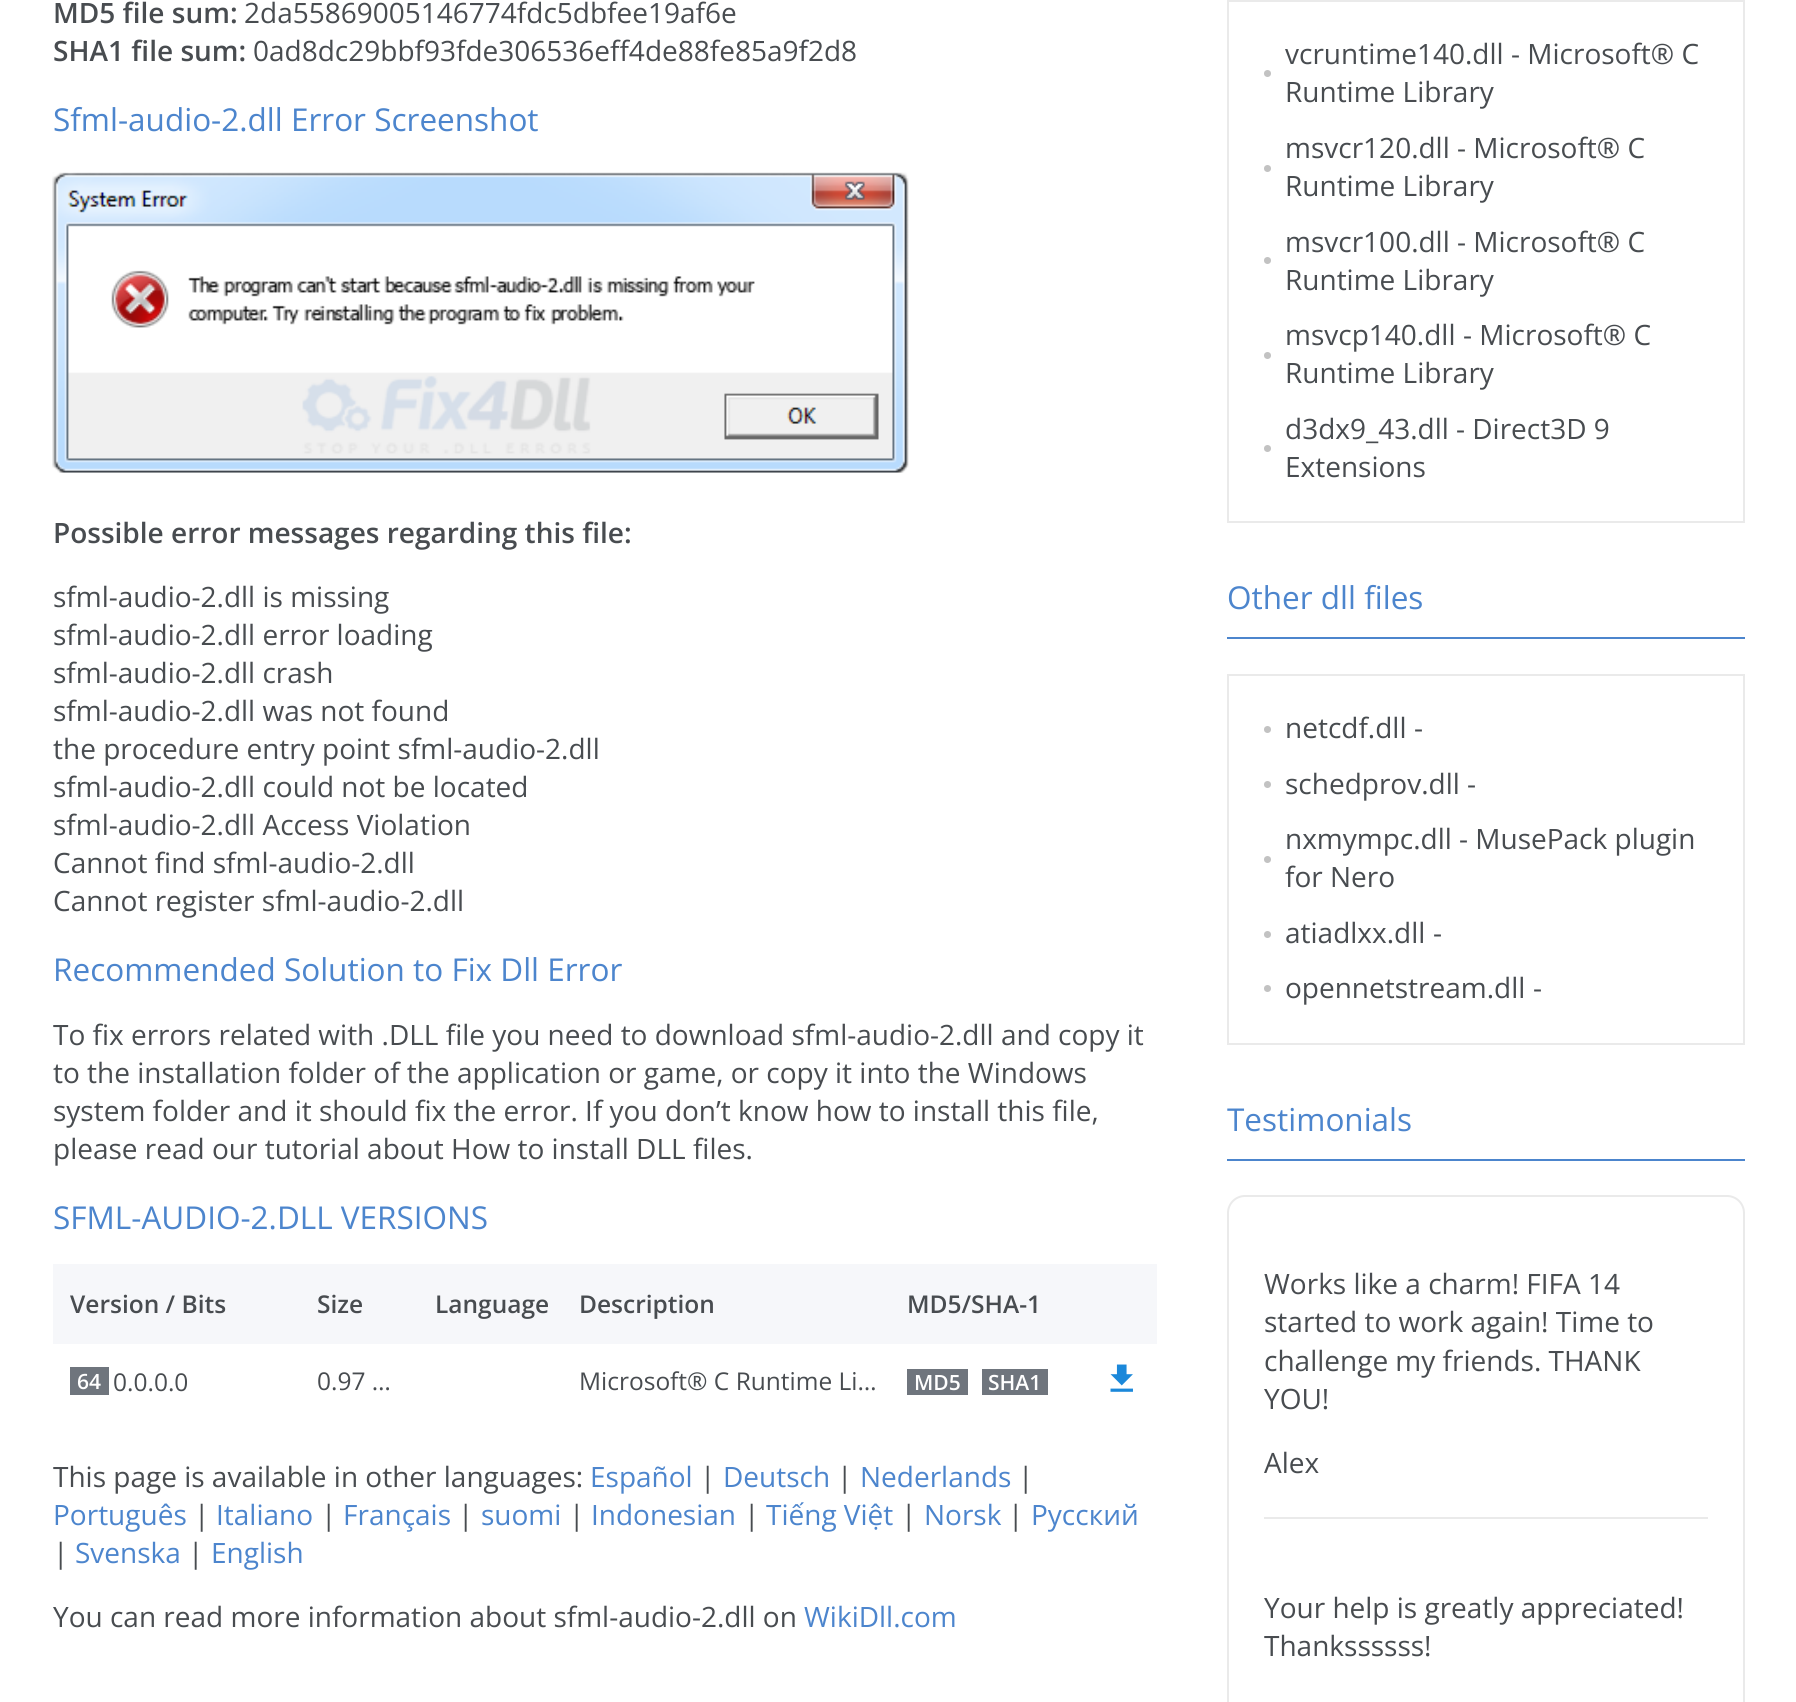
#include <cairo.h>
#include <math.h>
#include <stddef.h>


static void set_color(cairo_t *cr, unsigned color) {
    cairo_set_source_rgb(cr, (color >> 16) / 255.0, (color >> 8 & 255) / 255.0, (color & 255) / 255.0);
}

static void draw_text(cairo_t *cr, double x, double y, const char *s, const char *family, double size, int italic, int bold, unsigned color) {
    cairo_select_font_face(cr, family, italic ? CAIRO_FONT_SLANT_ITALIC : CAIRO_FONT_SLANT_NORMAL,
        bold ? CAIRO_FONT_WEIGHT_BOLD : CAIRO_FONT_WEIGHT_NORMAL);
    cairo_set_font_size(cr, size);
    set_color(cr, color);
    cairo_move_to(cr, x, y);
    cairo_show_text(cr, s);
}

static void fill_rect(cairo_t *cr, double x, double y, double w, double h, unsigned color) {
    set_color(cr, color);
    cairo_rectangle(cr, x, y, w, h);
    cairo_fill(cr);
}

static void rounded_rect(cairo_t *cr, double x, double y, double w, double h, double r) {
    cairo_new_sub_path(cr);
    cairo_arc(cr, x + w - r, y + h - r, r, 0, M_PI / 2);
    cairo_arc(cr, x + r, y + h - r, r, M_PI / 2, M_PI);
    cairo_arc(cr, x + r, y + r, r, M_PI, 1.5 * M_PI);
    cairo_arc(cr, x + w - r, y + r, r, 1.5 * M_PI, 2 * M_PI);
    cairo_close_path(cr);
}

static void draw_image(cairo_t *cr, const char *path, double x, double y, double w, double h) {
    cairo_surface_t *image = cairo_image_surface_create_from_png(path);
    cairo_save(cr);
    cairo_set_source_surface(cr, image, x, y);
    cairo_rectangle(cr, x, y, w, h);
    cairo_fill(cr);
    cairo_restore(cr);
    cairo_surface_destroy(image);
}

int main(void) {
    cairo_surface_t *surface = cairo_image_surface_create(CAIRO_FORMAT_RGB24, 1796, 1702);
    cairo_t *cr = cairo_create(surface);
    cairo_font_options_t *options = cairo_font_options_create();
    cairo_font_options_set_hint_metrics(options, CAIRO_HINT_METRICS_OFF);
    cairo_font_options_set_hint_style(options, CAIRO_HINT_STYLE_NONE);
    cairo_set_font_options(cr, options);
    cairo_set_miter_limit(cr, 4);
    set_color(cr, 0xFFFFFF);
    cairo_paint(cr);
    draw_text(cr, 53, 23, "MD5 file sum:", "Open Sans SemiBold", 28, 0, 0, 0x484C50);
    draw_text(cr, 244, 23, "2da55869005146774fdc5dbfee19af6e", "Open Sans", 28, 0, 0, 0x484C50);
    draw_text(cr, 53, 61, "SHA1 file sum:", "Open Sans SemiBold", 28, 0, 0, 0x484C50);
    draw_text(cr, 253, 61, "0ad8dc29bbf93fde306536eff4de88fe85a9f2d8", "Open Sans", 28, 0, 0, 0x484C50);
    draw_text(cr, 53, 131, "Sfml-audio-2.dll Error Screenshot", "Open Sans", 31.5, 0, 0, 0x4C85CD);
    draw_image(cr, "assets/img1.png", 52, 172, 857, 301);
    draw_text(cr, 53, 543, "Possible error messages regarding this file:", "Open Sans SemiBold", 28, 0, 0, 0x484C50);
    draw_text(cr, 53, 607, "sfml-audio-2.dll is missing", "Open Sans", 28, 0, 0, 0x484C50);
    draw_text(cr, 53, 645, "sfml-audio-2.dll error loading", "Open Sans", 28, 0, 0, 0x484C50);
    draw_text(cr, 53, 683, "sfml-audio-2.dll crash", "Open Sans", 28, 0, 0, 0x484C50);
    draw_text(cr, 53, 721, "sfml-audio-2.dll was not found", "Open Sans", 28, 0, 0, 0x484C50);
    draw_text(cr, 53, 759, "the procedure entry point sfml-audio-2.dll", "Open Sans", 28, 0, 0, 0x484C50);
    draw_text(cr, 53, 797, "sfml-audio-2.dll could not be located", "Open Sans", 28, 0, 0, 0x484C50);
    draw_text(cr, 53, 835, "sfml-audio-2.dll Access Violation", "Open Sans", 28, 0, 0, 0x484C50);
    draw_text(cr, 53, 873, "Cannot find sfml-audio-2.dll", "Open Sans", 28, 0, 0, 0x484C50);
    draw_text(cr, 53, 911, "Cannot register sfml-audio-2.dll", "Open Sans", 28, 0, 0, 0x484C50);
    draw_text(cr, 53, 981, "Recommended Solution to Fix Dll Error", "Open Sans", 31.5, 0, 0, 0x4C85CD);
    draw_text(cr, 53, 1045, "To fix errors related with .DLL file you need to download sfml-audio-2.dll and copy it", "Open Sans", 28, 0, 0, 0x484C50);
    draw_text(cr, 53, 1083, "to the installation folder of the application or game, or copy it into the Windows", "Open Sans", 28, 0, 0, 0x484C50);
    draw_text(cr, 53, 1121, "system folder and it should fix the error. If you don’t know how to install this file,", "Open Sans", 28, 0, 0, 0x484C50);
    draw_text(cr, 53, 1159, "please read our tutorial about How to install DLL files.", "Open Sans", 28, 0, 0, 0x484C50);
    draw_text(cr, 53, 1229, "SFML-AUDIO-2.DLL VERSIONS", "Open Sans", 31.5, 0, 0, 0x4C85CD);
    fill_rect(cr, 53, 1264, 1104, 80, 0xF6F7FA);
    draw_text(cr, 70, 1313, "Version / Bits", "Open Sans SemiBold", 24.5, 0, 0, 0x484C50);
    draw_text(cr, 317, 1313, "Size", "Open Sans SemiBold", 24.5, 0, 0, 0x484C50);
    draw_text(cr, 435, 1313, "Language", "Open Sans SemiBold", 24.5, 0, 0, 0x484C50);
    draw_text(cr, 579, 1313, "Description", "Open Sans SemiBold", 24.5, 0, 0, 0x484C50);
    draw_text(cr, 907, 1313, "MD5/SHA-1", "Open Sans SemiBold", 24.5, 0, 0, 0x484C50);
    fill_rect(cr, 70, 1367, 39, 28, 0x6F757D);
    draw_text(cr, 77, 1389, "64", "Open Sans SemiBold", 21, 0, 0, 0xFFFFFF);
    draw_text(cr, 113, 1391, "0.0.0.0", "Open Sans", 24.5, 0, 0, 0x484C50);
    draw_text(cr, 317, 1390, "0.97 …", "Open Sans", 24.5, 0, 0, 0x484C50);
    draw_text(cr, 579, 1390, "Microsoft® C Runtime Li…", "Open Sans", 24.5, 0, 0, 0x484C50);
    fill_rect(cr, 907, 1369, 61, 26, 0x6F757D);
    draw_text(cr, 914, 1390, "MD5", "Open Sans SemiBold", 21, 0, 0, 0xFFFFFF);
    fill_rect(cr, 982, 1369, 66, 26, 0x6F757D);
    draw_text(cr, 988, 1390, "SHA1", "Open Sans SemiBold", 21, 0, 0, 0xFFFFFF);
    draw_image(cr, "assets/img2.png", 1110, 1364, 23, 28);
    draw_text(cr, 53, 1487, "This page is available in other languages:", "Open Sans", 28, 0, 0, 0x484C50);
    draw_text(cr, 590, 1487, "Español", "Open Sans", 28, 0, 0, 0x4C85CD);
    draw_text(cr, 700, 1487, "|", "Open Sans", 28, 0, 0, 0x484C50);
    draw_text(cr, 723, 1487, "Deutsch", "Open Sans", 28, 0, 0, 0x4C85CD);
    draw_text(cr, 837, 1487, "|", "Open Sans", 28, 0, 0, 0x484C50);
    draw_text(cr, 860, 1487, "Nederlands", "Open Sans", 28, 0, 0, 0x4C85CD);
    draw_text(cr, 1018, 1487, "|", "Open Sans", 28, 0, 0, 0x484C50);
    draw_text(cr, 53, 1525, "Português", "Open Sans", 28, 0, 0, 0x4C85CD);
    draw_text(cr, 194, 1525, "|", "Open Sans", 28, 0, 0, 0x484C50);
    draw_text(cr, 216, 1525, "Italiano", "Open Sans", 28, 0, 0, 0x4C85CD);
    draw_text(cr, 321, 1525, "|", "Open Sans", 28, 0, 0, 0x484C50);
    draw_text(cr, 343, 1525, "Français", "Open Sans", 28, 0, 0, 0x4C85CD);
    draw_text(cr, 458, 1525, "|", "Open Sans", 28, 0, 0, 0x484C50);
    draw_text(cr, 481, 1525, "suomi", "Open Sans", 28, 0, 0, 0x4C85CD);
    draw_text(cr, 569, 1525, "|", "Open Sans", 28, 0, 0, 0x484C50);
    draw_text(cr, 591, 1525, "Indonesian", "Open Sans", 28, 0, 0, 0x4C85CD);
    draw_text(cr, 744, 1525, "|", "Open Sans", 28, 0, 0, 0x484C50);
    draw_text(cr, 766, 1525, "Tiếng Việt", "Open Sans", 28, 0, 0, 0x4C85CD);
    draw_text(cr, 901, 1525, "|", "Open Sans", 28, 0, 0, 0x484C50);
    draw_text(cr, 924, 1525, "Norsk", "Open Sans", 28, 0, 0, 0x4C85CD);
    draw_text(cr, 1008, 1525, "|", "Open Sans", 28, 0, 0, 0x484C50);
    draw_text(cr, 1031, 1525, "Русский", "Open Sans", 28, 0, 0, 0x4C85CD);
    draw_text(cr, 53, 1563, "|", "Open Sans", 28, 0, 0, 0x484C50);
    draw_text(cr, 75, 1563, "Svenska", "Open Sans", 28, 0, 0, 0x4C85CD);
    draw_text(cr, 188, 1563, "|", "Open Sans", 28, 0, 0, 0x484C50);
    draw_text(cr, 211, 1563, "English", "Open Sans", 28, 0, 0, 0x4C85CD);
    draw_text(cr, 53, 1627, "You can read more information about sfml-audio-2.dll on", "Open Sans", 28, 0, 0, 0x484C50);
    draw_text(cr, 804, 1627, "WikiDll.com", "Open Sans", 28, 0, 0, 0x4C85CD);
    cairo_rectangle(cr, 1228, 1, 516, 521);
    set_color(cr, 0xEAEAEA);
    cairo_stroke(cr);
    draw_text(cr, 1285, 64, "vcruntime140.dll", "Open Sans", 28, 0, 0, 0x484C50);
    draw_text(cr, 1511, 64, "- Microsoft® C", "Open Sans", 28, 0, 0, 0x484C50);
    set_color(cr, 0xC2C2C2);
    cairo_new_path(cr);
    cairo_arc(cr, 1267.5, 73.5, 3.5, 0, 2 * M_PI);
    cairo_fill(cr);
    draw_text(cr, 1285, 102, "Runtime Library", "Open Sans", 28, 0, 0, 0x484C50);
    draw_text(cr, 1285, 158, "msvcr120.dll", "Open Sans", 28, 0, 0, 0x484C50);
    draw_text(cr, 1457, 158, "- Microsoft® C", "Open Sans", 28, 0, 0, 0x484C50);
    set_color(cr, 0xC2C2C2);
    cairo_new_path(cr);
    cairo_arc(cr, 1267.5, 168.5, 3.5, 0, 2 * M_PI);
    cairo_fill(cr);
    draw_text(cr, 1285, 196, "Runtime Library", "Open Sans", 28, 0, 0, 0x484C50);
    draw_text(cr, 1285, 252, "msvcr100.dll", "Open Sans", 28, 0, 0, 0x484C50);
    draw_text(cr, 1457, 252, "- Microsoft® C", "Open Sans", 28, 0, 0, 0x484C50);
    set_color(cr, 0xC2C2C2);
    cairo_new_path(cr);
    cairo_arc(cr, 1267.5, 260.5, 3.5, 0, 2 * M_PI);
    cairo_fill(cr);
    draw_text(cr, 1285, 290, "Runtime Library", "Open Sans", 28, 0, 0, 0x484C50);
    draw_text(cr, 1285, 345, "msvcp140.dll", "Open Sans", 28, 0, 0, 0x484C50);
    draw_text(cr, 1463, 345, "- Microsoft® C", "Open Sans", 28, 0, 0, 0x484C50);
    set_color(cr, 0xC2C2C2);
    cairo_new_path(cr);
    cairo_arc(cr, 1267.5, 355.5, 3.5, 0, 2 * M_PI);
    cairo_fill(cr);
    draw_text(cr, 1285, 383, "Runtime Library", "Open Sans", 28, 0, 0, 0x484C50);
    draw_text(cr, 1285, 439, "d3dx9_43.dll", "Open Sans", 28, 0, 0, 0x484C50);
    draw_text(cr, 1456, 439, "- Direct3D 9", "Open Sans", 28, 0, 0, 0x484C50);
    set_color(cr, 0xC2C2C2);
    cairo_new_path(cr);
    cairo_arc(cr, 1267.5, 448.5, 3.5, 0, 2 * M_PI);
    cairo_fill(cr);
    draw_text(cr, 1285, 477, "Extensions", "Open Sans", 28, 0, 0, 0x484C50);
    fill_rect(cr, 1227, 637, 518, 2, 0x4C85CD);
    draw_text(cr, 1227, 609, "Other dll files", "Open Sans", 31.5, 0, 0, 0x4C85CD);
    cairo_rectangle(cr, 1228, 675, 516, 369);
    set_color(cr, 0xEAEAEA);
    cairo_stroke(cr);
    set_color(cr, 0xC2C2C2);
    cairo_arc(cr, 1267.5, 729.5, 3.5, 0, 2 * M_PI);
    cairo_fill(cr);
    draw_text(cr, 1285, 738, "netcdf.dll", "Open Sans", 28, 0, 0, 0x484C50);
    draw_text(cr, 1414, 738, "-", "Open Sans", 28, 0, 0, 0x484C50);
    set_color(cr, 0xC2C2C2);
    cairo_new_path(cr);
    cairo_arc(cr, 1267.5, 784.5, 3.5, 0, 2 * M_PI);
    cairo_fill(cr);
    draw_text(cr, 1285, 794, "schedprov.dll", "Open Sans", 28, 0, 0, 0x484C50);
    draw_text(cr, 1467, 794, "-", "Open Sans", 28, 0, 0, 0x484C50);
    draw_text(cr, 1285, 849, "nxmympc.dll", "Open Sans", 28, 0, 0, 0x484C50);
    draw_text(cr, 1459, 849, "- MusePack plugin", "Open Sans", 28, 0, 0, 0x484C50);
    set_color(cr, 0xC2C2C2);
    cairo_new_path(cr);
    cairo_arc(cr, 1267.5, 859.5, 3.5, 0, 2 * M_PI);
    cairo_fill(cr);
    draw_text(cr, 1285, 887, "for Nero", "Open Sans", 28, 0, 0, 0x484C50);
    set_color(cr, 0xC2C2C2);
    cairo_new_path(cr);
    cairo_arc(cr, 1267.5, 934.5, 3.5, 0, 2 * M_PI);
    cairo_fill(cr);
    draw_text(cr, 1285, 943, "atiadlxx.dll", "Open Sans", 28, 0, 0, 0x484C50);
    draw_text(cr, 1433, 943, "-", "Open Sans", 28, 0, 0, 0x484C50);
    set_color(cr, 0xC2C2C2);
    cairo_new_path(cr);
    cairo_arc(cr, 1267.5, 988.5, 3.5, 0, 2 * M_PI);
    cairo_fill(cr);
    draw_text(cr, 1285, 998, "opennetstream.dll", "Open Sans", 28, 0, 0, 0x484C50);
    draw_text(cr, 1533, 998, "-", "Open Sans", 28, 0, 0, 0x484C50);
    fill_rect(cr, 1227, 1159, 518, 2, 0x4C85CD);
    draw_text(cr, 1227, 1131, "Testimonials", "Open Sans", 31.5, 0, 0, 0x4C85CD);
    rounded_rect(cr, 1228, 1196, 516, 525, 17);
    set_color(cr, 0xEAEAEA);
    cairo_stroke(cr);
    draw_text(cr, 1264, 1294, "Works like a charm! FIFA 14", "Open Sans", 28, 0, 0, 0x484C50);
    draw_text(cr, 1264, 1332, "started to work again! Time to", "Open Sans", 28, 0, 0, 0x484C50);
    draw_text(cr, 1264, 1371, "challenge my friends. THANK", "Open Sans", 28, 0, 0, 0x484C50);
    draw_text(cr, 1264, 1409, "YOU!", "Open Sans", 28, 0, 0, 0x484C50);
    draw_text(cr, 1264, 1473, "Alex", "Open Sans", 28, 0, 0, 0x484C50);
    fill_rect(cr, 1264, 1517, 444, 2, 0xEAEAEA);
    draw_text(cr, 1264, 1618, "Your help is greatly appreciated!", "Open Sans", 28, 0, 0, 0x484C50);
    draw_text(cr, 1264, 1656, "Thankssssss!", "Open Sans", 28, 0, 0, 0x484C50);
    cairo_surface_write_to_png(surface, "output.png");
    cairo_font_options_destroy(options);
    cairo_destroy(cr);
    cairo_surface_destroy(surface);
    return 0;
}
